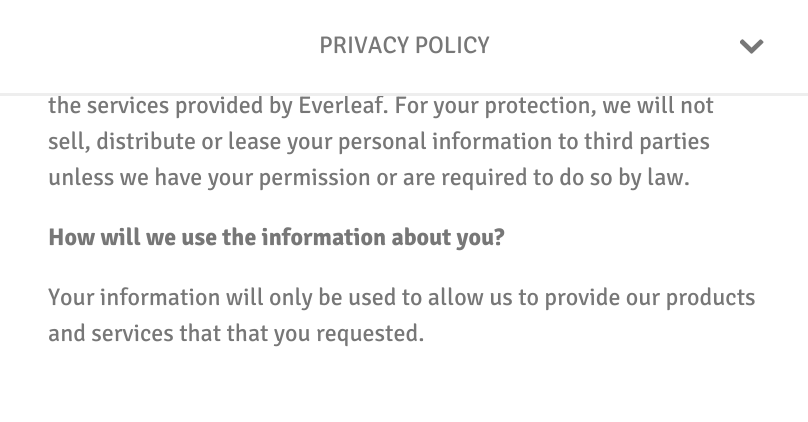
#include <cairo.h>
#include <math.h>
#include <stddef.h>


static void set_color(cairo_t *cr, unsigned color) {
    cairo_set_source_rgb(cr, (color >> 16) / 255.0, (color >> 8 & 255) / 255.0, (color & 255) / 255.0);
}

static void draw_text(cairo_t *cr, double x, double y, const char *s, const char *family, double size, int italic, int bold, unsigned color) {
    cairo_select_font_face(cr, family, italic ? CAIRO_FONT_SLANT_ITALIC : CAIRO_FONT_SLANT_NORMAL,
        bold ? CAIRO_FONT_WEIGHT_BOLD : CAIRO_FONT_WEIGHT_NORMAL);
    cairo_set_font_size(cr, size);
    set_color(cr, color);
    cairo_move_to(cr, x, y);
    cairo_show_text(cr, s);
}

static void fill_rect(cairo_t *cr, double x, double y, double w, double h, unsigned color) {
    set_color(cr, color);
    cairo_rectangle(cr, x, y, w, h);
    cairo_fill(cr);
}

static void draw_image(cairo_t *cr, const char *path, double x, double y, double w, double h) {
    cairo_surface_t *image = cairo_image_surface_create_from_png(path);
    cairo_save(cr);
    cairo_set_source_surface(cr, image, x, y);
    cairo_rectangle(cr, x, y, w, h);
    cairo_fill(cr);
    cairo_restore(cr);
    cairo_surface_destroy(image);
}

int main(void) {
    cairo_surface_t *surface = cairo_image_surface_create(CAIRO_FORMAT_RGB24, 808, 422);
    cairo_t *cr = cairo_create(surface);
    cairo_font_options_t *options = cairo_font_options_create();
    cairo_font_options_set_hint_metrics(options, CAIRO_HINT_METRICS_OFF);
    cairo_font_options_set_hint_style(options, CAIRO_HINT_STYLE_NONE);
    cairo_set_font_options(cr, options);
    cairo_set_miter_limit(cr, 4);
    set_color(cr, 0xFFFFFF);
    cairo_paint(cr);
    draw_text(cr, 48, 113, "the services provided by Everleaf. For your protection, we will not", "Signika", 24, 0, 0, 0x777777);
    fill_rect(cr, 0, 93, 808, 3, 0xEEEEEE);
    draw_text(cr, 319, 53, "PRIVACY POLICY", "Signika", 24, 0, 0, 0x777777);
    draw_image(cr, "assets/img1.png", 740, 39, 24, 15);
    draw_text(cr, 48, 149, "sell, distribute or lease your personal information to third parties", "Signika", 24, 0, 0, 0x777777);
    draw_text(cr, 48, 185, "unless we have your permission or are required to do so by law.", "Signika", 24, 0, 0, 0x777777);
    draw_text(cr, 48, 245, "How will we use the information about you?", "Signika", 24, 0, 1, 0x777777);
    draw_text(cr, 48, 305, "Your information will only be used to allow us to provide our products", "Signika", 24, 0, 0, 0x777777);
    draw_text(cr, 48, 341, "and services that that you requested.", "Signika", 24, 0, 0, 0x777777);
    cairo_surface_write_to_png(surface, "output.png");
    cairo_font_options_destroy(options);
    cairo_destroy(cr);
    cairo_surface_destroy(surface);
    return 0;
}
